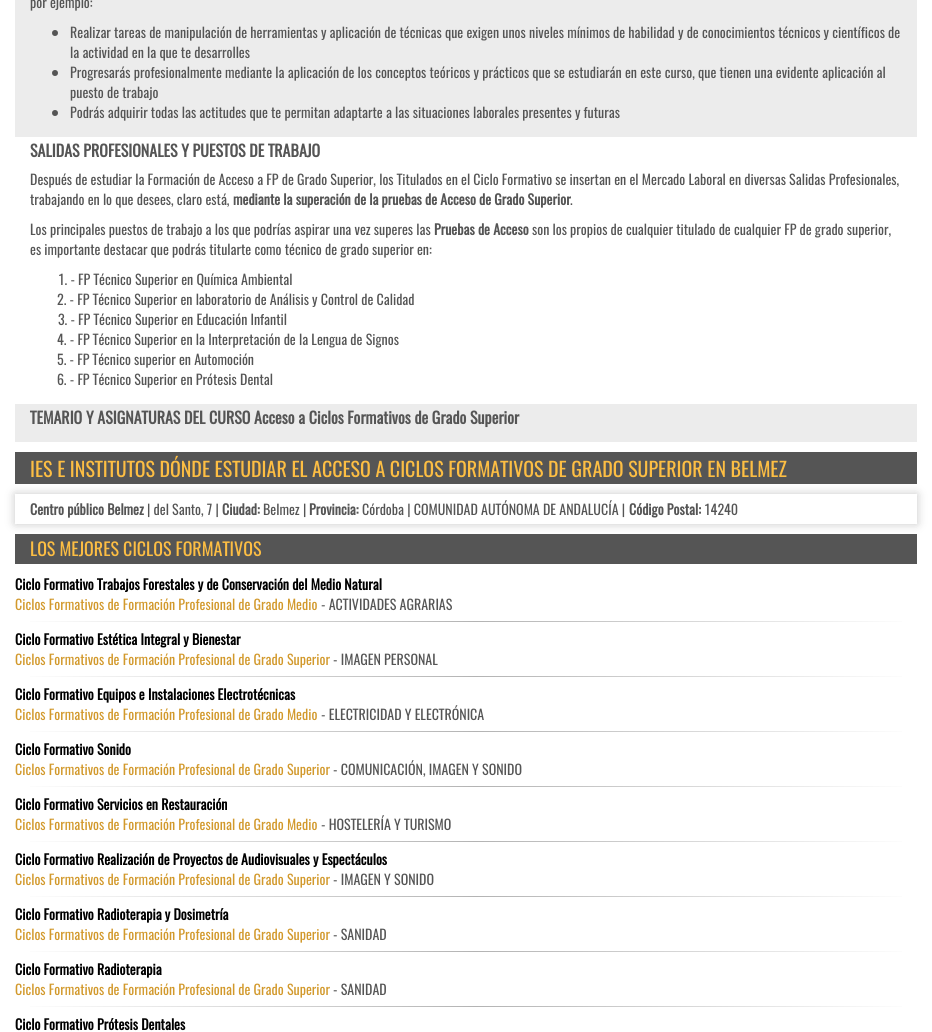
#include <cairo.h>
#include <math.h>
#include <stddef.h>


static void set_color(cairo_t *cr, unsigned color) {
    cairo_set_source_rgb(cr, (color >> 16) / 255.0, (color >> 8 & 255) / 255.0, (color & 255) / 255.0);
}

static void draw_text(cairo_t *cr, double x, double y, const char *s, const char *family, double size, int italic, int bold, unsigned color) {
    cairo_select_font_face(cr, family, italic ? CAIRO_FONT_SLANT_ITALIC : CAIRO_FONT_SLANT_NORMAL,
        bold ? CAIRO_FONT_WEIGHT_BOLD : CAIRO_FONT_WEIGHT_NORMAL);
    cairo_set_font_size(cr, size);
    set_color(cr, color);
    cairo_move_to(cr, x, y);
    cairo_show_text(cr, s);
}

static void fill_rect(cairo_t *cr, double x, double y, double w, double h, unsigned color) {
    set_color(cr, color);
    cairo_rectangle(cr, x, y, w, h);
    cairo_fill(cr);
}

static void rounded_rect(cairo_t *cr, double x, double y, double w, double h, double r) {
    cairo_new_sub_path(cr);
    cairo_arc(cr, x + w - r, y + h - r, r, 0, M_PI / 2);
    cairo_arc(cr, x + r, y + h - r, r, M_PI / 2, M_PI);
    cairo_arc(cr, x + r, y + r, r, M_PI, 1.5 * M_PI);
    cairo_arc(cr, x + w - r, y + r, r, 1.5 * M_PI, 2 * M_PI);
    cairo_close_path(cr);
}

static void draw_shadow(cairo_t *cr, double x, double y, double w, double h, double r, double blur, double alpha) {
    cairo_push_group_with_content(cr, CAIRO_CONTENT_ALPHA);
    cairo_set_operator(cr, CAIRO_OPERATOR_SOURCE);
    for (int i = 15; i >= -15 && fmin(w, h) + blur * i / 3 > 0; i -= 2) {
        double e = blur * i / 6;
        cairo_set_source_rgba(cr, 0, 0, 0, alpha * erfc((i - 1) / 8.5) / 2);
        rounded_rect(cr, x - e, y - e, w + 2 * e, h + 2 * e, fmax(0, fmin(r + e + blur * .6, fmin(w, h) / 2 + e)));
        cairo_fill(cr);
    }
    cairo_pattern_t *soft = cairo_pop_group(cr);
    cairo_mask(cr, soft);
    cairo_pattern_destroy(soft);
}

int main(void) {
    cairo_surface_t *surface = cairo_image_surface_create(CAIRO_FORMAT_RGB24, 932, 1032);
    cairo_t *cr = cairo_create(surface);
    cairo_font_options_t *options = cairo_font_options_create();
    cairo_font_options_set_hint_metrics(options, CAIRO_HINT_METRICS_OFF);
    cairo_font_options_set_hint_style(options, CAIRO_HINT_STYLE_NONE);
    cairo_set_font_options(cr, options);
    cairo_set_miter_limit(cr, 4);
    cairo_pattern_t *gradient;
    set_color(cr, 0xFFFFFF);
    cairo_paint(cr);
    fill_rect(cr, 15, 0, 902, 137, 0xECECEC);
    draw_text(cr, 30, 8, "por ejemplo:", "Oswald", 14, 0, 0, 0x555555);
    cairo_new_path(cr);
    cairo_arc(cr, 55, 33, 3, 0, 2 * M_PI);
    cairo_fill(cr);
    draw_text(cr, 70, 38, "Realizar tareas de manipulación de herramientas y aplicación de técnicas que exigen unos niveles mínimos de habilidad y de conocimientos técnicos y científicos de", "Oswald", 14, 0, 0, 0x555555);
    draw_text(cr, 70, 58, "la actividad en la que te desarrolles", "Oswald", 14, 0, 0, 0x555555);
    cairo_new_path(cr);
    cairo_arc(cr, 55, 73, 3, 0, 2 * M_PI);
    cairo_fill(cr);
    draw_text(cr, 70, 78, "Progresarás profesionalmente mediante la aplicación de los conceptos teóricos y prácticos que se estudiarán en este curso, que tienen una evidente aplicación al", "Oswald", 14, 0, 0, 0x555555);
    draw_text(cr, 70, 98, "puesto de trabajo", "Oswald", 14, 0, 0, 0x555555);
    cairo_new_path(cr);
    cairo_arc(cr, 55, 113, 3, 0, 2 * M_PI);
    cairo_fill(cr);
    draw_text(cr, 70, 118, "Podrás adquirir todas las actitudes que te permitan adaptarte a las situaciones laborales presentes y futuras", "Oswald", 14, 0, 0, 0x555555);
    draw_text(cr, 30, 157, "SALIDAS PROFESIONALES Y PUESTOS DE TRABAJO", "Oswald", 16, 0, 1, 0x555555);
    draw_text(cr, 30, 185, "Después de estudiar la Formación de Acceso a FP de Grado Superior, los Titulados en el Ciclo Formativo se insertan en el Mercado Laboral en diversas Salidas Profesionales,", "Oswald", 14, 0, 0, 0x555555);
    draw_text(cr, 30, 205, "trabajando en lo que desees, claro está,", "Oswald", 14, 0, 0, 0x555555);
    draw_text(cr, 233, 205, "mediante la superación de la pruebas de Acceso de Grado Superior", "Oswald", 14, 0, 1, 0x555555);
    draw_text(cr, 570, 205, ".", "Oswald", 14, 0, 0, 0x555555);
    draw_text(cr, 30, 235, "Los principales puestos de trabajo a los que podrías aspirar una vez superes las", "Oswald", 14, 0, 0, 0x555555);
    draw_text(cr, 434, 235, "Pruebas de Acceso", "Oswald", 14, 0, 1, 0x555555);
    draw_text(cr, 532, 235, "son los propios de cualquier titulado de cualquier FP de grado superior,", "Oswald", 14, 0, 0, 0x555555);
    draw_text(cr, 30, 255, "es importante destacar que podrás titularte como técnico de grado superior en:", "Oswald", 14, 0, 0, 0x555555);
    draw_text(cr, 58, 285, "1. - FP Técnico Superior en Química Ambiental", "Oswald", 14, 0, 0, 0x555555);
    draw_text(cr, 57, 305, "2. - FP Técnico Superior en laboratorio de Análisis y Control de Calidad", "Oswald", 14, 0, 0, 0x555555);
    draw_text(cr, 58, 325, "3. - FP Técnico Superior en Educación Infantil", "Oswald", 14, 0, 0, 0x555555);
    draw_text(cr, 57, 345, "4. - FP Técnico Superior en la Interpretación de la Lengua de Signos", "Oswald", 14, 0, 0, 0x555555);
    draw_text(cr, 57, 365, "5. - FP Técnico superior en Automoción", "Oswald", 14, 0, 0, 0x555555);
    draw_text(cr, 57, 385, "6. - FP Técnico Superior en Prótesis Dental", "Oswald", 14, 0, 0, 0x555555);
    fill_rect(cr, 15, 404, 902, 38, 0xECECEC);
    draw_text(cr, 30, 424, "TEMARIO Y ASIGNATURAS DEL CURSO Acceso a Ciclos Formativos de Grado Superior", "Oswald", 16, 0, 1, 0x555555);
    fill_rect(cr, 15, 452, 902, 32, 0x555555);
    draw_text(cr, 30, 477, "IES E INSTITUTOS DÓNDE ESTUDIAR EL ACCESO A CICLOS FORMATIVOS DE GRADO SUPERIOR EN BELMEZ", "Oswald", 20, 0, 0, 0xFDBE43);
    cairo_save(cr);
    cairo_set_fill_rule(cr, CAIRO_FILL_RULE_EVEN_ODD);
    cairo_new_path(cr);
    cairo_move_to(cr, 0, 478);
    cairo_line_to(cr, 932, 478);
    cairo_line_to(cr, 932, 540);
    cairo_line_to(cr, 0, 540);
    cairo_close_path(cr);
    cairo_move_to(cr, 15, 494);
    cairo_line_to(cr, 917, 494);
    cairo_line_to(cr, 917, 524);
    cairo_line_to(cr, 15, 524);
    cairo_close_path(cr);
    cairo_clip(cr);
    set_color(cr, 0x000000);
    draw_shadow(cr, 15, 494, 902, 30, 0, 5, 0.22);
    cairo_restore(cr);
    draw_text(cr, 30, 515, "Centro público Belmez", "Oswald", 14, 0, 1, 0x555555);
    draw_text(cr, 147, 515, "| del Santo, 7 |", "Oswald", 14, 0, 0, 0x555555);
    draw_text(cr, 222, 515, "Ciudad:", "Oswald", 14, 0, 1, 0x555555);
    draw_text(cr, 263, 515, "Belmez |", "Oswald", 14, 0, 0, 0x555555);
    draw_text(cr, 309, 515, "Provincia:", "Oswald", 14, 0, 1, 0x555555);
    draw_text(cr, 362, 515, "Córdoba | COMUNIDAD AUTÓNOMA DE ANDALUCÍA |", "Oswald", 14, 0, 0, 0x555555);
    draw_text(cr, 629, 515, "Código Postal:", "Oswald", 14, 0, 1, 0x555555);
    draw_text(cr, 704, 515, "14240", "Oswald", 14, 0, 0, 0x555555);
    fill_rect(cr, 15, 534, 902, 30, 0x555555);
    draw_text(cr, 30, 556, "LOS MEJORES CICLOS FORMATIVOS", "Oswald", 18, 0, 0, 0xFDBE43);
    draw_text(cr, 15, 590, "Ciclo Formativo Trabajos Forestales y de Conservación del Medio Natural", "Oswald", 14, 0, 1, 0x000000);
    draw_text(cr, 15, 610, "Ciclos Formativos de Formación Profesional de Grado Medio", "Oswald", 14, 0, 0, 0xD2992C);
    draw_text(cr, 321, 610, "- ACTIVIDADES AGRARIAS", "Oswald", 14, 0, 0, 0x555555);
    gradient = cairo_pattern_create_linear(15, 622, 917, 622);
    cairo_pattern_add_color_stop_rgba(gradient, 0, 1, 1, 1, 1);
    cairo_pattern_add_color_stop_rgba(gradient, 0.5, 0.71, 0.71, 0.71, 1);
    cairo_pattern_add_color_stop_rgba(gradient, 0.51, 0.702, 0.702, 0.702, 1);
    cairo_pattern_add_color_stop_rgba(gradient, 1, 1, 1, 1, 1);
    cairo_set_source(cr, gradient);
    cairo_pattern_destroy(gradient);
    cairo_rectangle(cr, 30, 621, 872, 1);
    cairo_fill(cr);
    draw_text(cr, 15, 645, "Ciclo Formativo Estética Integral y Bienestar", "Oswald", 14, 0, 1, 0x000000);
    draw_text(cr, 15, 665, "Ciclos Formativos de Formación Profesional de Grado Superior", "Oswald", 14, 0, 0, 0xD2992C);
    draw_text(cr, 333, 665, "- IMAGEN PERSONAL", "Oswald", 14, 0, 0, 0x555555);
    gradient = cairo_pattern_create_linear(15, 677, 917, 677);
    cairo_pattern_add_color_stop_rgba(gradient, 0, 1, 1, 1, 1);
    cairo_pattern_add_color_stop_rgba(gradient, 0.5, 0.71, 0.71, 0.71, 1);
    cairo_pattern_add_color_stop_rgba(gradient, 0.51, 0.702, 0.702, 0.702, 1);
    cairo_pattern_add_color_stop_rgba(gradient, 1, 1, 1, 1, 1);
    cairo_set_source(cr, gradient);
    cairo_pattern_destroy(gradient);
    cairo_rectangle(cr, 30, 676, 872, 1);
    cairo_fill(cr);
    draw_text(cr, 15, 700, "Ciclo Formativo Equipos e Instalaciones Electrotécnicas", "Oswald", 14, 0, 1, 0x000000);
    draw_text(cr, 15, 720, "Ciclos Formativos de Formación Profesional de Grado Medio", "Oswald", 14, 0, 0, 0xD2992C);
    draw_text(cr, 321, 720, "- ELECTRICIDAD Y ELECTRÓNICA", "Oswald", 14, 0, 0, 0x555555);
    gradient = cairo_pattern_create_linear(15, 732, 917, 732);
    cairo_pattern_add_color_stop_rgba(gradient, 0, 1, 1, 1, 1);
    cairo_pattern_add_color_stop_rgba(gradient, 0.5, 0.71, 0.71, 0.71, 1);
    cairo_pattern_add_color_stop_rgba(gradient, 0.51, 0.702, 0.702, 0.702, 1);
    cairo_pattern_add_color_stop_rgba(gradient, 1, 1, 1, 1, 1);
    cairo_set_source(cr, gradient);
    cairo_pattern_destroy(gradient);
    cairo_rectangle(cr, 30, 731, 872, 1);
    cairo_fill(cr);
    draw_text(cr, 15, 755, "Ciclo Formativo Sonido", "Oswald", 14, 0, 1, 0x000000);
    draw_text(cr, 15, 775, "Ciclos Formativos de Formación Profesional de Grado Superior", "Oswald", 14, 0, 0, 0xD2992C);
    draw_text(cr, 333, 775, "- COMUNICACIÓN, IMAGEN Y SONIDO", "Oswald", 14, 0, 0, 0x555555);
    gradient = cairo_pattern_create_linear(15, 787, 917, 787);
    cairo_pattern_add_color_stop_rgba(gradient, 0, 1, 1, 1, 1);
    cairo_pattern_add_color_stop_rgba(gradient, 0.5, 0.71, 0.71, 0.71, 1);
    cairo_pattern_add_color_stop_rgba(gradient, 0.51, 0.702, 0.702, 0.702, 1);
    cairo_pattern_add_color_stop_rgba(gradient, 1, 1, 1, 1, 1);
    cairo_set_source(cr, gradient);
    cairo_pattern_destroy(gradient);
    cairo_rectangle(cr, 30, 786, 872, 1);
    cairo_fill(cr);
    draw_text(cr, 15, 810, "Ciclo Formativo Servicios en Restauración", "Oswald", 14, 0, 1, 0x000000);
    draw_text(cr, 15, 830, "Ciclos Formativos de Formación Profesional de Grado Medio", "Oswald", 14, 0, 0, 0xD2992C);
    draw_text(cr, 321, 830, "- HOSTELERÍA Y TURISMO", "Oswald", 14, 0, 0, 0x555555);
    gradient = cairo_pattern_create_linear(15, 842, 917, 842);
    cairo_pattern_add_color_stop_rgba(gradient, 0, 1, 1, 1, 1);
    cairo_pattern_add_color_stop_rgba(gradient, 0.5, 0.71, 0.71, 0.71, 1);
    cairo_pattern_add_color_stop_rgba(gradient, 0.51, 0.702, 0.702, 0.702, 1);
    cairo_pattern_add_color_stop_rgba(gradient, 1, 1, 1, 1, 1);
    cairo_set_source(cr, gradient);
    cairo_pattern_destroy(gradient);
    cairo_rectangle(cr, 30, 841, 872, 1);
    cairo_fill(cr);
    draw_text(cr, 15, 865, "Ciclo Formativo Realización de Proyectos de Audiovisuales y Espectáculos", "Oswald", 14, 0, 1, 0x000000);
    draw_text(cr, 15, 885, "Ciclos Formativos de Formación Profesional de Grado Superior", "Oswald", 14, 0, 0, 0xD2992C);
    draw_text(cr, 333, 885, "- IMAGEN Y SONIDO", "Oswald", 14, 0, 0, 0x555555);
    gradient = cairo_pattern_create_linear(15, 897, 917, 897);
    cairo_pattern_add_color_stop_rgba(gradient, 0, 1, 1, 1, 1);
    cairo_pattern_add_color_stop_rgba(gradient, 0.5, 0.71, 0.71, 0.71, 1);
    cairo_pattern_add_color_stop_rgba(gradient, 0.51, 0.702, 0.702, 0.702, 1);
    cairo_pattern_add_color_stop_rgba(gradient, 1, 1, 1, 1, 1);
    cairo_set_source(cr, gradient);
    cairo_pattern_destroy(gradient);
    cairo_rectangle(cr, 30, 896, 872, 1);
    cairo_fill(cr);
    draw_text(cr, 15, 920, "Ciclo Formativo Radioterapia y Dosimetría", "Oswald", 14, 0, 1, 0x000000);
    draw_text(cr, 15, 940, "Ciclos Formativos de Formación Profesional de Grado Superior", "Oswald", 14, 0, 0, 0xD2992C);
    draw_text(cr, 333, 940, "- SANIDAD", "Oswald", 14, 0, 0, 0x555555);
    gradient = cairo_pattern_create_linear(15, 952, 917, 952);
    cairo_pattern_add_color_stop_rgba(gradient, 0, 1, 1, 1, 1);
    cairo_pattern_add_color_stop_rgba(gradient, 0.5, 0.71, 0.71, 0.71, 1);
    cairo_pattern_add_color_stop_rgba(gradient, 0.51, 0.702, 0.702, 0.702, 1);
    cairo_pattern_add_color_stop_rgba(gradient, 1, 1, 1, 1, 1);
    cairo_set_source(cr, gradient);
    cairo_pattern_destroy(gradient);
    cairo_rectangle(cr, 30, 951, 872, 1);
    cairo_fill(cr);
    draw_text(cr, 15, 975, "Ciclo Formativo Radioterapia", "Oswald", 14, 0, 1, 0x000000);
    draw_text(cr, 15, 995, "Ciclos Formativos de Formación Profesional de Grado Superior", "Oswald", 14, 0, 0, 0xD2992C);
    draw_text(cr, 333, 995, "- SANIDAD", "Oswald", 14, 0, 0, 0x555555);
    gradient = cairo_pattern_create_linear(15, 1007, 917, 1007);
    cairo_pattern_add_color_stop_rgba(gradient, 0, 1, 1, 1, 1);
    cairo_pattern_add_color_stop_rgba(gradient, 0.5, 0.71, 0.71, 0.71, 1);
    cairo_pattern_add_color_stop_rgba(gradient, 0.51, 0.702, 0.702, 0.702, 1);
    cairo_pattern_add_color_stop_rgba(gradient, 1, 1, 1, 1, 1);
    cairo_set_source(cr, gradient);
    cairo_pattern_destroy(gradient);
    cairo_rectangle(cr, 30, 1006, 872, 1);
    cairo_fill(cr);
    draw_text(cr, 15, 1030, "Ciclo Formativo Prótesis Dentales", "Oswald", 14, 0, 1, 0x000000);
    cairo_surface_write_to_png(surface, "output.png");
    cairo_font_options_destroy(options);
    cairo_destroy(cr);
    cairo_surface_destroy(surface);
    return 0;
}
